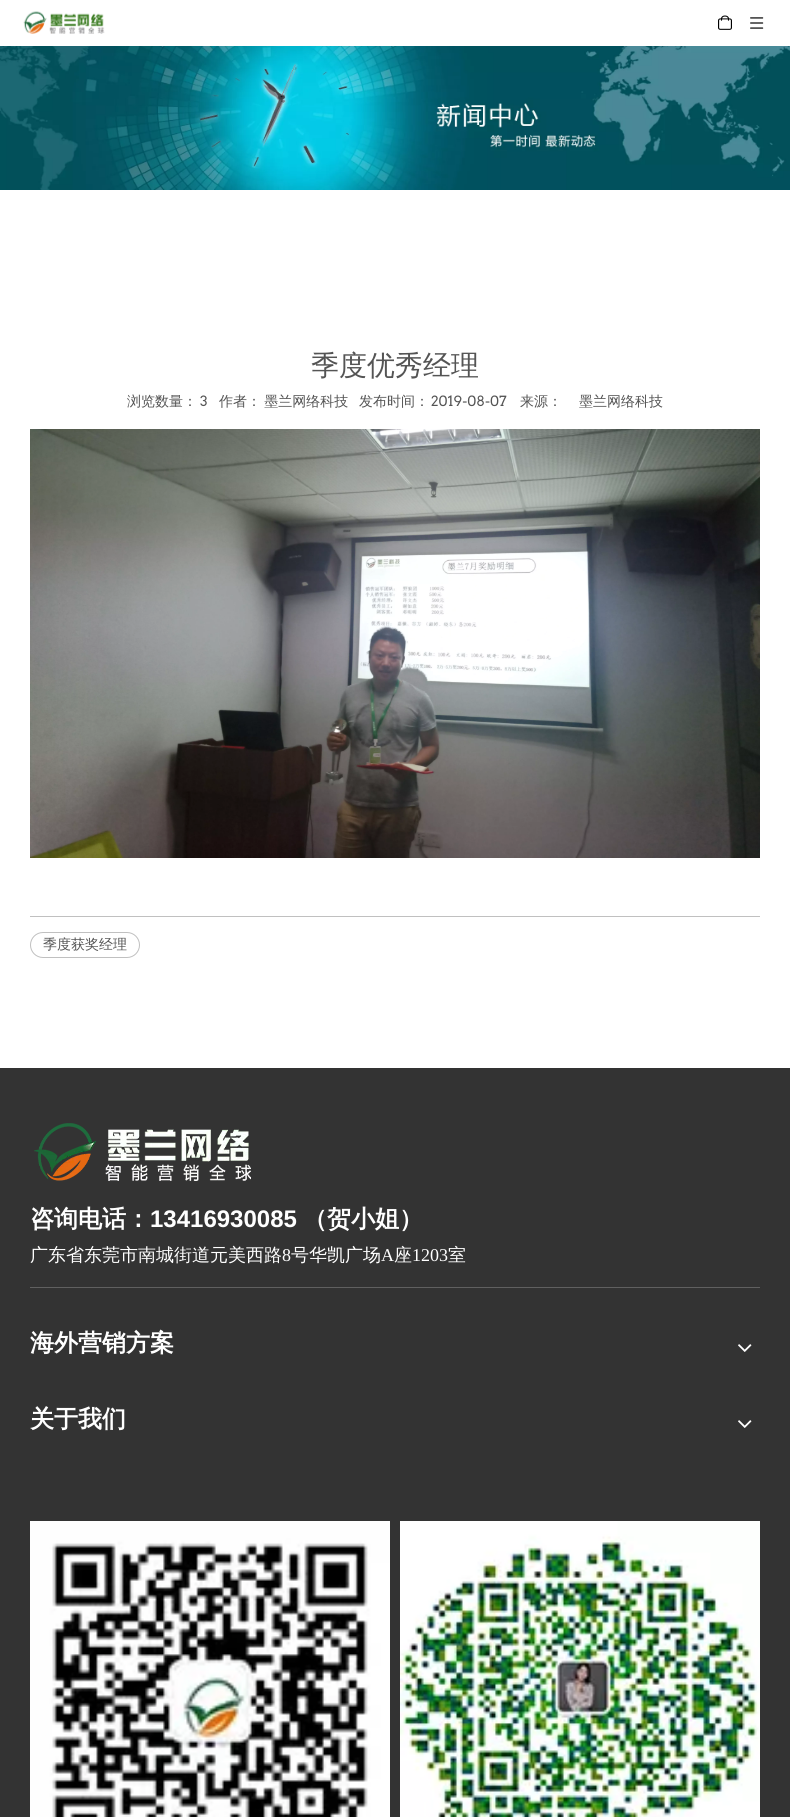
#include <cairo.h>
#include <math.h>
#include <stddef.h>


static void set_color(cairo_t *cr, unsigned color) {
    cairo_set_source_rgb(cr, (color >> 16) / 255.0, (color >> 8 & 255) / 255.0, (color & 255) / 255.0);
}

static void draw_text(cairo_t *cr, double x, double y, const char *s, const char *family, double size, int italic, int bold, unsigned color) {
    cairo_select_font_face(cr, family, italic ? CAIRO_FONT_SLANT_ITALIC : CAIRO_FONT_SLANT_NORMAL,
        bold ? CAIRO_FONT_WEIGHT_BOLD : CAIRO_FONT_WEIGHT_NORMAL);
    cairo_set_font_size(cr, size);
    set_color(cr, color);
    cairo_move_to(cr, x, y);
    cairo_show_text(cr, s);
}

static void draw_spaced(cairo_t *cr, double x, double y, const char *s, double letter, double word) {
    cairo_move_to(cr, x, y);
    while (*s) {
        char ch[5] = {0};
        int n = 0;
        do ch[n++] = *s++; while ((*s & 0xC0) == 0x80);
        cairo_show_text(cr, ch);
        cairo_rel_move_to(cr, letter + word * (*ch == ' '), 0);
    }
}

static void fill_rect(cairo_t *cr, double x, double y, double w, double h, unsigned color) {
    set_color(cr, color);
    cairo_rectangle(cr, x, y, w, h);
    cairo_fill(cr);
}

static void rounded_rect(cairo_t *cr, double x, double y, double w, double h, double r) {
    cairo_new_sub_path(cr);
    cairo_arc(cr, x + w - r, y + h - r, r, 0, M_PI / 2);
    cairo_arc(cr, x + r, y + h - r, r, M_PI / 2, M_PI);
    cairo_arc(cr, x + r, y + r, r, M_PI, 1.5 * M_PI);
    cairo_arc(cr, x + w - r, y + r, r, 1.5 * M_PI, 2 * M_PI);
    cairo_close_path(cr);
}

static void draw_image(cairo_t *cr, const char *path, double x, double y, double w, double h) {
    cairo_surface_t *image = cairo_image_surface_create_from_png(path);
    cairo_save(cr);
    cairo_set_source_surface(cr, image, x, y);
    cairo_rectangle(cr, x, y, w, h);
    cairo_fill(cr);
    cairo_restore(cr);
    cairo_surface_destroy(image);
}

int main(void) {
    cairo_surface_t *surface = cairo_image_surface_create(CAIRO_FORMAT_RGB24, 790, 1817);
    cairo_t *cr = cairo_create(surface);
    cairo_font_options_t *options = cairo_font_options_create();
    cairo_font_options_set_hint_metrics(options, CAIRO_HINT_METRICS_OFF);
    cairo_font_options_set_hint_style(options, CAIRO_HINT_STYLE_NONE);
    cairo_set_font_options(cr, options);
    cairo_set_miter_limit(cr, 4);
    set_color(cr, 0xFFFFFF);
    cairo_paint(cr);
    draw_image(cr, "assets/img1.png", 23, 11, 82, 23);
    draw_image(cr, "assets/img2.png", 718, 15, 14, 15);
    draw_image(cr, "assets/img3.png", 750, 17, 14, 12);
    draw_image(cr, "assets/img4.png", 0, 46, 790, 144);
    draw_text(cr, 311, 375, "季度优秀经理", "WenQuanYi Zen Hei Medium", 28, 0, 0, 0x545454);
    draw_text(cr, 127, 406, "浏览数量：", "WenQuanYi Zen Hei Medium", 14, 0, 0, 0x545454);
    draw_text(cr, 200, 406, "3", "Arvo", 14, 0, 0, 0x545454);
    cairo_select_font_face(cr, "WenQuanYi Zen Hei Medium", CAIRO_FONT_SLANT_NORMAL, CAIRO_FONT_WEIGHT_NORMAL);
    draw_spaced(cr, 219, 406, "作者： 墨兰网络科技", 0, -1);
    draw_text(cr, 359, 406, "发布时间：", "WenQuanYi Zen Hei Medium", 14, 0, 0, 0x545454);
    draw_text(cr, 431, 406, "2019-08-07", "Arvo", 14, 0, 0, 0x545454);
    draw_text(cr, 520, 406, "来源：", "WenQuanYi Zen Hei Medium", 14, 0, 0, 0x545454);
    draw_text(cr, 579, 406, "墨兰网络科技", "WenQuanYi Zen Hei Medium", 14, 0, 0, 0x545454);
    draw_image(cr, "assets/img5.png", 30, 429, 730, 429);
    fill_rect(cr, 30, 916, 730, 1, 0xC0C0C0);
    rounded_rect(cr, 30.5, 932.5, 109, 25, 12.5);
    cairo_set_line_width(cr, 1);
    cairo_stroke(cr);
    draw_text(cr, 43, 949, "季度获奖经理", "WenQuanYi Zen Hei Medium", 14, 0, 0, 0x545454);
    fill_rect(cr, 0, 1068, 790, 749, 0x333333);
    draw_image(cr, "assets/img6.png", 34, 1123, 217, 58);
    draw_text(cr, 30, 1227, "咨询电话：", "WenQuanYi Zen Hei", 24, 0, 1, 0xFFFFFF);
    draw_text(cr, 150, 1227, "13416930085", "Liberation Sans", 24, 0, 1, 0xFFFFFF);
    draw_text(cr, 303, 1227, "（贺小姐）", "WenQuanYi Zen Hei", 24, 0, 1, 0xFFFFFF);
    draw_text(cr, 30, 1261, "广东省东莞市南城街道元美西路", "WenQuanYi Zen Hei Medium", 18, 0, 0, 0xFFFFFF);
    draw_text(cr, 282, 1261, "8", "Liberation Serif", 18, 0, 0, 0xFFFFFF);
    draw_text(cr, 291, 1261, "号华凯广场", "WenQuanYi Zen Hei Medium", 18, 0, 0, 0xFFFFFF);
    draw_text(cr, 381, 1261, "A", "Liberation Serif", 18, 0, 0, 0xFFFFFF);
    draw_text(cr, 394, 1261, "座", "WenQuanYi Zen Hei Medium", 18, 0, 0, 0xFFFFFF);
    draw_text(cr, 412, 1261, "1203", "Liberation Serif", 18, 0, 0, 0xFFFFFF);
    draw_text(cr, 448, 1261, "室", "WenQuanYi Zen Hei Medium", 18, 0, 0, 0xFFFFFF);
    fill_rect(cr, 30, 1287, 730, 1, 0x606060);
    draw_text(cr, 30, 1351, "海外营销方案", "WenQuanYi Zen Hei", 24, 0, 1, 0xFFFFFF);
    draw_image(cr, "assets/img7.png", 738, 1344, 14, 8);
    draw_text(cr, 30, 1427, "关于我们", "WenQuanYi Zen Hei", 24, 0, 1, 0xFFFFFF);
    draw_image(cr, "assets/img7.png", 738, 1420, 14, 8);
    draw_image(cr, "assets/img8.png", 30, 1521, 360, 296);
    draw_image(cr, "assets/img9.png", 400, 1521, 360, 296);
    cairo_surface_write_to_png(surface, "output.png");
    cairo_font_options_destroy(options);
    cairo_destroy(cr);
    cairo_surface_destroy(surface);
    return 0;
}
